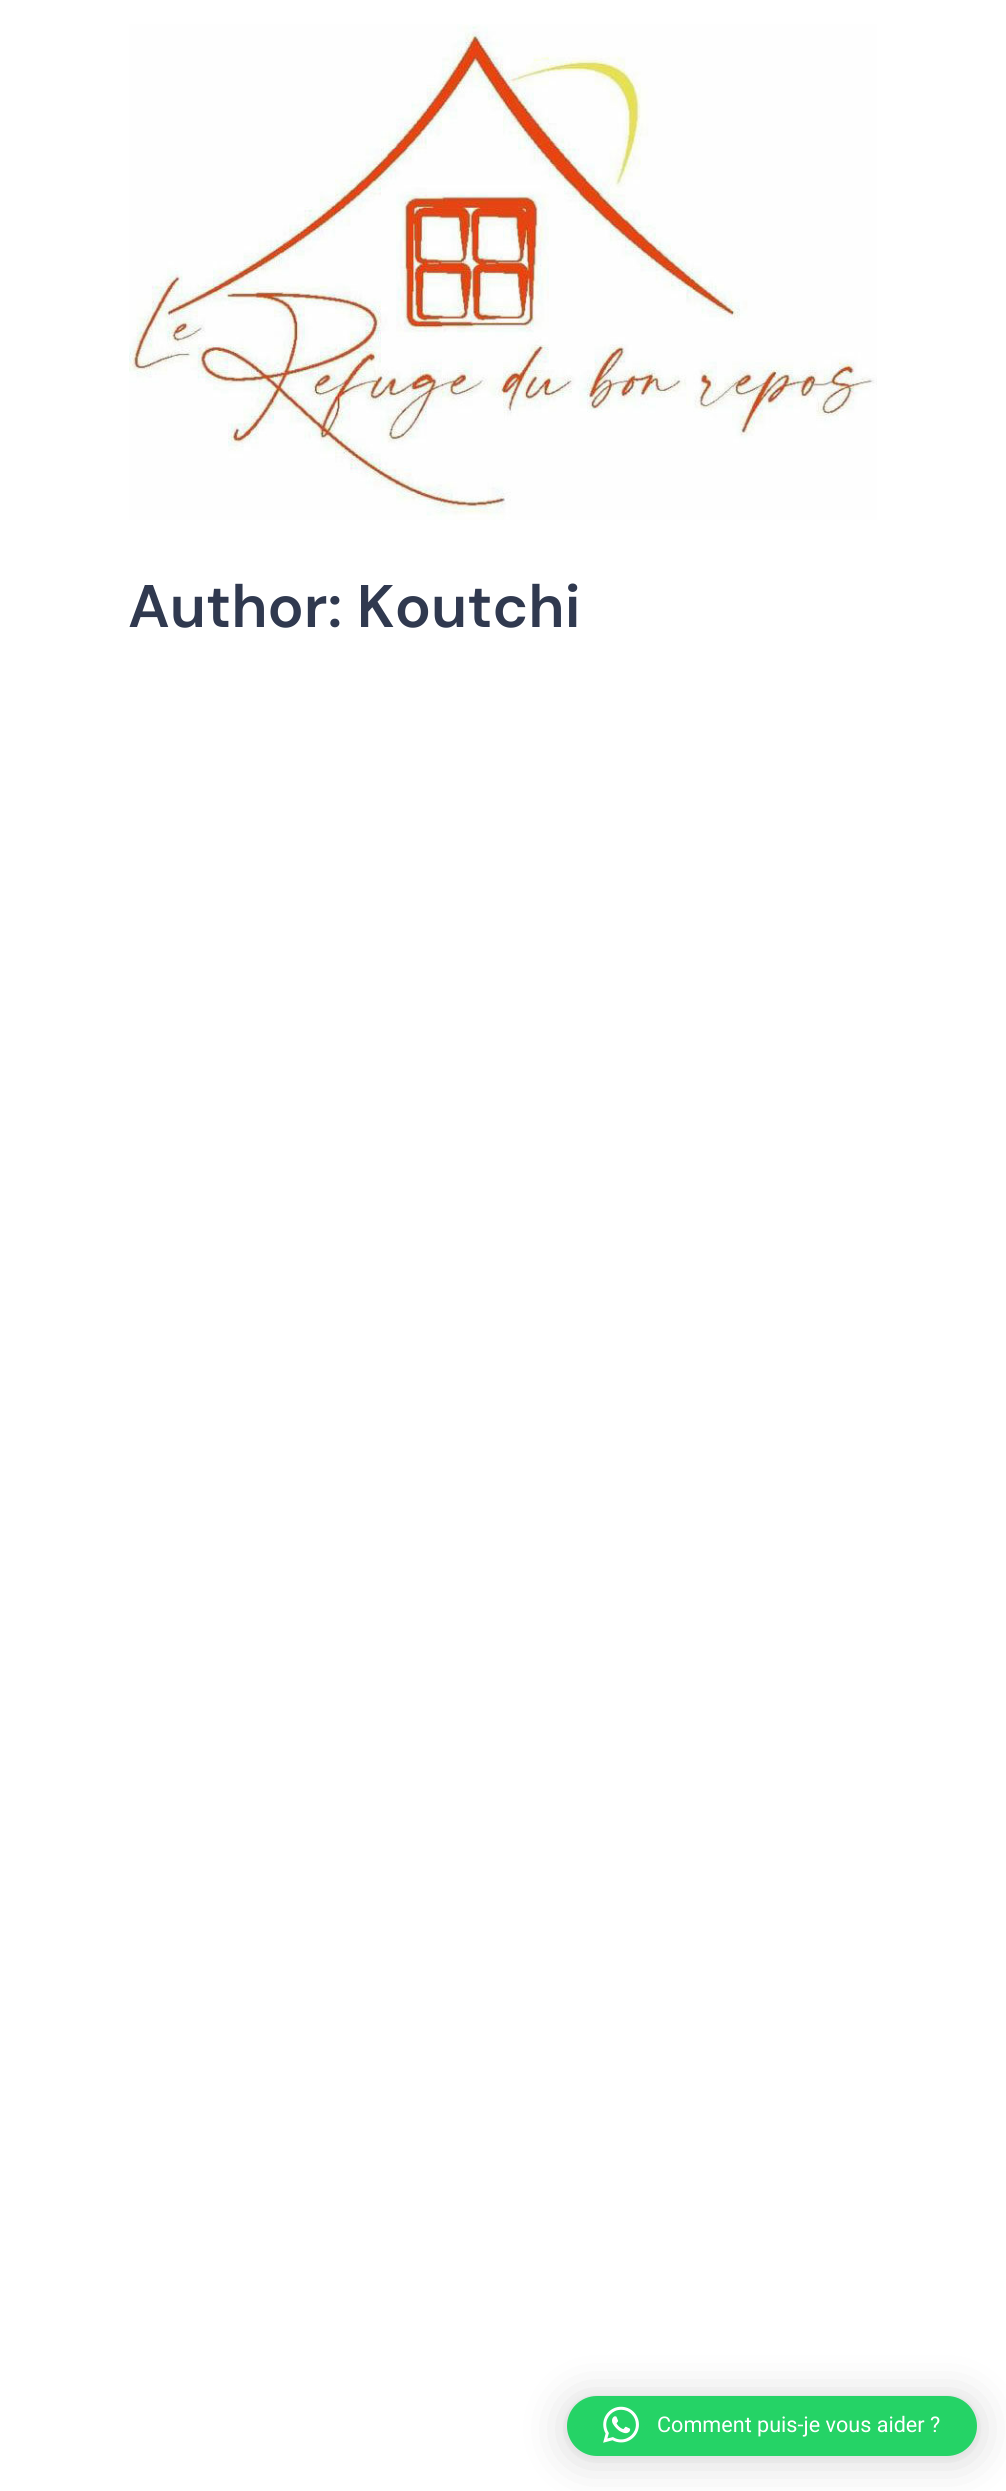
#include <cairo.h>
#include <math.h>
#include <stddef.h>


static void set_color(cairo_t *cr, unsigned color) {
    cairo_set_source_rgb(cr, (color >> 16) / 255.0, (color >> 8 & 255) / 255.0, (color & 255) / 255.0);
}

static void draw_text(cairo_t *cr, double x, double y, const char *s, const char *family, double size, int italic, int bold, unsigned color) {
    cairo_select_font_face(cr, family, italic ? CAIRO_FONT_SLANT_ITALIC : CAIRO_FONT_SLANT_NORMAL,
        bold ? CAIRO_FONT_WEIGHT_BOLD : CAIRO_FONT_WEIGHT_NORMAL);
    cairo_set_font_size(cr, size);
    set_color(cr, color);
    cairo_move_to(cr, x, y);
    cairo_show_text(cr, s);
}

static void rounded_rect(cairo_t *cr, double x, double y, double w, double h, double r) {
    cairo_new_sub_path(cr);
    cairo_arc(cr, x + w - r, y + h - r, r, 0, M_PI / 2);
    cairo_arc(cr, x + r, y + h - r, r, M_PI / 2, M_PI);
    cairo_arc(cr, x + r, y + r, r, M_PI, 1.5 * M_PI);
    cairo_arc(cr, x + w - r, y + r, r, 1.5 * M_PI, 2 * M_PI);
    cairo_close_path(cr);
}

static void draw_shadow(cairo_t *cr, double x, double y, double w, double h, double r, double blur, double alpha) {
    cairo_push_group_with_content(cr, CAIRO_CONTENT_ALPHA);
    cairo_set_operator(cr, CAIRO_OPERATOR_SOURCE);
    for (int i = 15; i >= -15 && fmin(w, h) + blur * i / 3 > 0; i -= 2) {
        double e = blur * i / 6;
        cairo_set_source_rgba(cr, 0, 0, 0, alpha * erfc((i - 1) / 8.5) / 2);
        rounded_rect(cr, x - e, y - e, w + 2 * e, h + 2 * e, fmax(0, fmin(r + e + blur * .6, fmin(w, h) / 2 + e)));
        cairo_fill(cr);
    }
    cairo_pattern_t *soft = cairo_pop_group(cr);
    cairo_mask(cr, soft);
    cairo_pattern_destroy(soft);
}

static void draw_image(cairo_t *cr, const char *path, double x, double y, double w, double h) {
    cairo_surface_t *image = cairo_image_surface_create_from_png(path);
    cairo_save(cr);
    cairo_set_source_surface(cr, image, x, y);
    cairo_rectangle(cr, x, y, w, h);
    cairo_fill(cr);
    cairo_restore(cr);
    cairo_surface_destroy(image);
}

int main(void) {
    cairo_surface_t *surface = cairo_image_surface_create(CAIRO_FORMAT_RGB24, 1006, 2491);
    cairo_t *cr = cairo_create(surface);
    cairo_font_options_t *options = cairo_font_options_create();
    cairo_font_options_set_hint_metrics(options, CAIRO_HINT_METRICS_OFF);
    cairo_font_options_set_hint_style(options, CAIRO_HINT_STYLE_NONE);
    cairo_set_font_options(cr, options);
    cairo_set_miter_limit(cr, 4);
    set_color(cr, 0xFFFFFF);
    cairo_paint(cr);
    draw_image(cr, "assets/img1.png", 129, 24, 748, 496);
    draw_text(cr, 128, 627, "Author: Koutchi", "DM Sans SemiBold", 60, 0, 0, 0x30394F);
    set_color(cr, 0x000000);
    draw_shadow(cr, 567, 2399, 410, 60, 30, 24, 0.16);
    draw_shadow(cr, 567, 2397, 410, 60, 30, 4.5, 0.06);
    set_color(cr, 0x25D366);
    rounded_rect(cr, 567, 2396, 410, 60, 30);
    cairo_fill(cr);
    draw_image(cr, "assets/img2.png", 603, 2406, 36, 37);
    draw_text(cr, 657, 2432, "Comment puis-je vous aider ?", "Roboto", 21.6, 0, 0, 0xFFFFFF);
    cairo_surface_write_to_png(surface, "output.png");
    cairo_font_options_destroy(options);
    cairo_destroy(cr);
    cairo_surface_destroy(surface);
    return 0;
}
